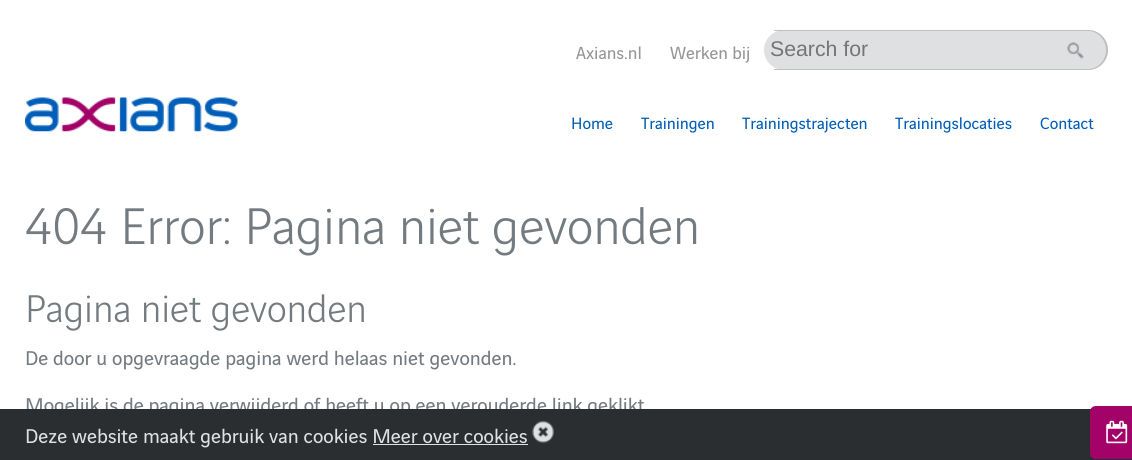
#include <cairo.h>
#include <math.h>
#include <stddef.h>


static void set_color(cairo_t *cr, unsigned color) {
    cairo_set_source_rgb(cr, (color >> 16) / 255.0, (color >> 8 & 255) / 255.0, (color & 255) / 255.0);
}

static void draw_text(cairo_t *cr, double x, double y, const char *s, const char *family, double size, int italic, int bold, unsigned color) {
    cairo_select_font_face(cr, family, italic ? CAIRO_FONT_SLANT_ITALIC : CAIRO_FONT_SLANT_NORMAL,
        bold ? CAIRO_FONT_WEIGHT_BOLD : CAIRO_FONT_WEIGHT_NORMAL);
    cairo_set_font_size(cr, size);
    set_color(cr, color);
    cairo_move_to(cr, x, y);
    cairo_show_text(cr, s);
}

static void fill_rect(cairo_t *cr, double x, double y, double w, double h, unsigned color) {
    set_color(cr, color);
    cairo_rectangle(cr, x, y, w, h);
    cairo_fill(cr);
}

static void draw_image(cairo_t *cr, const char *path, double x, double y, double w, double h) {
    cairo_surface_t *image = cairo_image_surface_create_from_png(path);
    cairo_save(cr);
    cairo_set_source_surface(cr, image, x, y);
    cairo_rectangle(cr, x, y, w, h);
    cairo_fill(cr);
    cairo_restore(cr);
    cairo_surface_destroy(image);
}

int main(void) {
    cairo_surface_t *surface = cairo_image_surface_create(CAIRO_FORMAT_RGB24, 1132, 460);
    cairo_t *cr = cairo_create(surface);
    cairo_font_options_t *options = cairo_font_options_create();
    cairo_font_options_set_hint_metrics(options, CAIRO_HINT_METRICS_OFF);
    cairo_font_options_set_hint_style(options, CAIRO_HINT_STYLE_NONE);
    cairo_set_font_options(cr, options);
    cairo_set_miter_limit(cr, 4);
    set_color(cr, 0xFFFFFF);
    cairo_paint(cr);
    draw_text(cr, 576, 59, "Axians.nl", "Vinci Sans", 18.75, 0, 0, 0x959595);
    draw_text(cr, 670, 59, "Werken bij", "Vinci Sans", 18.75, 0, 0, 0x959595);
    set_color(cr, 0xDEE0E2);
    cairo_new_path(cr);
    cairo_move_to(cr, 784, 30);
    cairo_line_to(cr, 1048, 30);
    cairo_line_to(cr, 1048, 70);
    cairo_line_to(cr, 784, 70);
    cairo_curve_to(cr, 773, 70, 764, 61, 764, 50);
    cairo_curve_to(cr, 764, 39, 773, 30, 784, 30);
    cairo_close_path(cr);
    cairo_fill(cr);
    fill_rect(cr, 774, 30, 274, 1, 0xC0C0C0);
    fill_rect(cr, 774, 69, 274, 1, 0xC0C0C0);
    draw_text(cr, 770, 56, "Search for", "Liberation Sans", 21.25, 0, 0, 0x757575);
    set_color(cr, 0xDEE0E2);
    cairo_new_path(cr);
    cairo_move_to(cr, 1045, 30);
    cairo_line_to(cr, 1088, 30);
    cairo_curve_to(cr, 1099, 30, 1108, 39, 1108, 50);
    cairo_curve_to(cr, 1108, 61, 1099, 70, 1088, 70);
    cairo_line_to(cr, 1045, 70);
    cairo_close_path(cr);
    cairo_fill(cr);
    draw_image(cr, "assets/img1.png", 1067, 42, 17, 17);
    set_color(cr, 0xC0C0C0);
    cairo_set_fill_rule(cr, CAIRO_FILL_RULE_EVEN_ODD);
    cairo_new_path(cr);
    cairo_move_to(cr, 1045, 30);
    cairo_line_to(cr, 1088, 30);
    cairo_curve_to(cr, 1099, 30, 1108, 39, 1108, 50);
    cairo_curve_to(cr, 1108, 61, 1099, 70, 1088, 70);
    cairo_line_to(cr, 1045, 70);
    cairo_close_path(cr);
    cairo_move_to(cr, 1045, 31);
    cairo_line_to(cr, 1088, 31);
    cairo_curve_to(cr, 1098, 31, 1106, 40, 1106, 50);
    cairo_curve_to(cr, 1106, 60, 1098, 69, 1088, 69);
    cairo_line_to(cr, 1045, 69);
    cairo_close_path(cr);
    cairo_fill(cr);
    draw_image(cr, "assets/img2.png", 25, 97, 213, 35);
    draw_text(cr, 571, 129, "Home", "Vinci Sans", 17.5, 0, 0, 0x005EB8);
    draw_text(cr, 641, 129, "Trainingen", "Vinci Sans", 17.5, 0, 0, 0x005EB8);
    draw_text(cr, 742, 129, "Trainingstrajecten", "Vinci Sans", 17.5, 0, 0, 0x005EB8);
    draw_text(cr, 895, 129, "Trainingslocaties", "Vinci Sans", 17.5, 0, 0, 0x005EB8);
    draw_text(cr, 1040, 129, "Contact", "Vinci Sans", 17.5, 0, 0, 0x005EB8);
    draw_text(cr, 25, 244, "404 Error: Pagina niet gevonden", "Vinci Sans Light", 55, 0, 0, 0x747B80);
    draw_text(cr, 25, 322, "Pagina niet gevonden", "Vinci Sans Light", 41.25, 0, 0, 0x747B80);
    draw_text(cr, 25, 365, "De door u opgevraagde pagina werd helaas niet gevonden.", "Vinci Sans", 21.25, 0, 0, 0x747B80);
    draw_text(cr, 25, 412, "Mogelijk is de pagina verwijderd of heeft u op een verouderde link geklikt", "Vinci Sans", 21.25, 0, 0, 0x747B80);
    fill_rect(cr, 0, 409, 1132, 51, 0x2B2E30);
    set_color(cr, 0xA30368);
    cairo_new_path(cr);
    cairo_move_to(cr, 1096, 406);
    cairo_line_to(cr, 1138, 406);
    cairo_line_to(cr, 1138, 459);
    cairo_line_to(cr, 1096, 459);
    cairo_curve_to(cr, 1092.5, 459, 1090, 456.5, 1090, 453);
    cairo_line_to(cr, 1090, 412);
    cairo_curve_to(cr, 1090, 408.5, 1092.5, 406, 1096, 406);
    cairo_close_path(cr);
    cairo_fill(cr);
    draw_image(cr, "assets/img3.png", 1106, 420, 22, 24);
    draw_text(cr, 25, 443, "Deze website maakt gebruik van cookies Meer over cookies", "Vinci Sans", 21.25, 0, 0, 0xDEE0E2);
    draw_image(cr, "assets/img4.png", 532, 421, 22, 22);
    fill_rect(cr, 373, 444, 155, 1, 0xDEE0E2);
    cairo_surface_write_to_png(surface, "output.png");
    cairo_font_options_destroy(options);
    cairo_destroy(cr);
    cairo_surface_destroy(surface);
    return 0;
}
